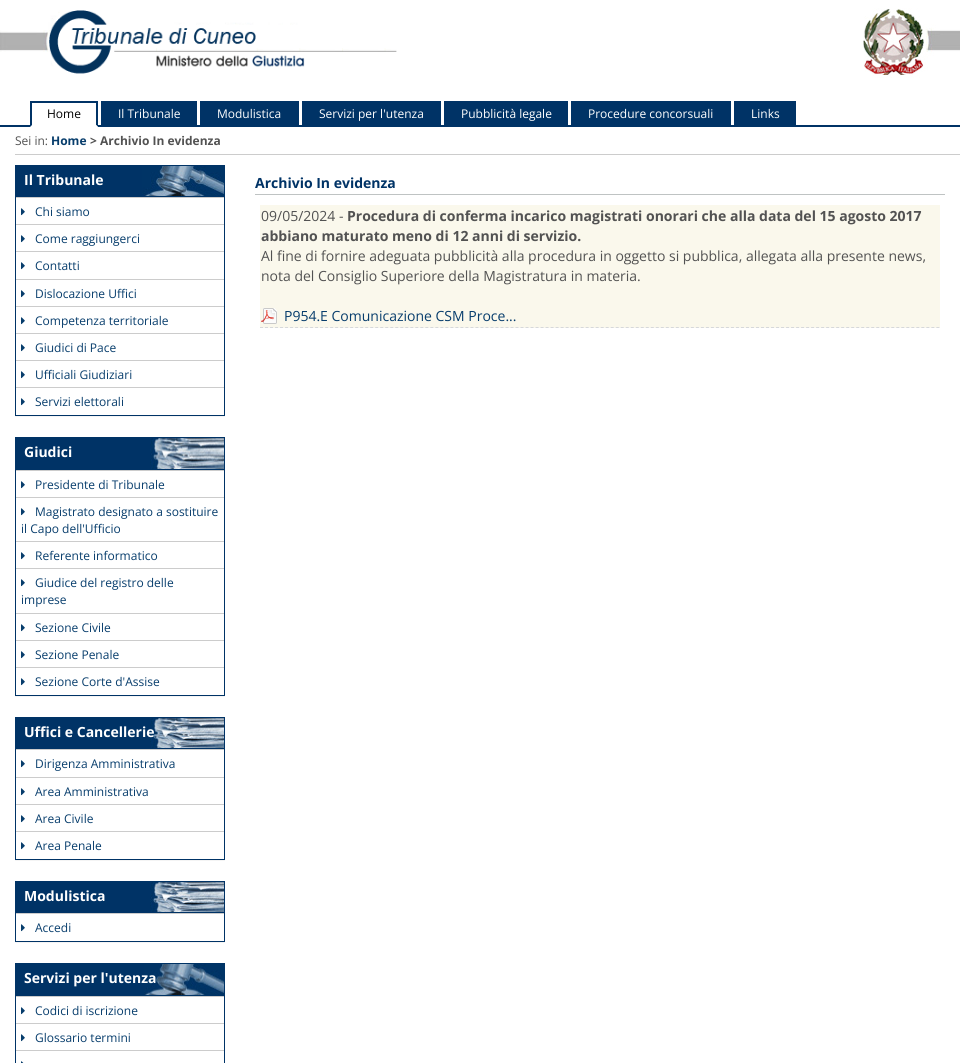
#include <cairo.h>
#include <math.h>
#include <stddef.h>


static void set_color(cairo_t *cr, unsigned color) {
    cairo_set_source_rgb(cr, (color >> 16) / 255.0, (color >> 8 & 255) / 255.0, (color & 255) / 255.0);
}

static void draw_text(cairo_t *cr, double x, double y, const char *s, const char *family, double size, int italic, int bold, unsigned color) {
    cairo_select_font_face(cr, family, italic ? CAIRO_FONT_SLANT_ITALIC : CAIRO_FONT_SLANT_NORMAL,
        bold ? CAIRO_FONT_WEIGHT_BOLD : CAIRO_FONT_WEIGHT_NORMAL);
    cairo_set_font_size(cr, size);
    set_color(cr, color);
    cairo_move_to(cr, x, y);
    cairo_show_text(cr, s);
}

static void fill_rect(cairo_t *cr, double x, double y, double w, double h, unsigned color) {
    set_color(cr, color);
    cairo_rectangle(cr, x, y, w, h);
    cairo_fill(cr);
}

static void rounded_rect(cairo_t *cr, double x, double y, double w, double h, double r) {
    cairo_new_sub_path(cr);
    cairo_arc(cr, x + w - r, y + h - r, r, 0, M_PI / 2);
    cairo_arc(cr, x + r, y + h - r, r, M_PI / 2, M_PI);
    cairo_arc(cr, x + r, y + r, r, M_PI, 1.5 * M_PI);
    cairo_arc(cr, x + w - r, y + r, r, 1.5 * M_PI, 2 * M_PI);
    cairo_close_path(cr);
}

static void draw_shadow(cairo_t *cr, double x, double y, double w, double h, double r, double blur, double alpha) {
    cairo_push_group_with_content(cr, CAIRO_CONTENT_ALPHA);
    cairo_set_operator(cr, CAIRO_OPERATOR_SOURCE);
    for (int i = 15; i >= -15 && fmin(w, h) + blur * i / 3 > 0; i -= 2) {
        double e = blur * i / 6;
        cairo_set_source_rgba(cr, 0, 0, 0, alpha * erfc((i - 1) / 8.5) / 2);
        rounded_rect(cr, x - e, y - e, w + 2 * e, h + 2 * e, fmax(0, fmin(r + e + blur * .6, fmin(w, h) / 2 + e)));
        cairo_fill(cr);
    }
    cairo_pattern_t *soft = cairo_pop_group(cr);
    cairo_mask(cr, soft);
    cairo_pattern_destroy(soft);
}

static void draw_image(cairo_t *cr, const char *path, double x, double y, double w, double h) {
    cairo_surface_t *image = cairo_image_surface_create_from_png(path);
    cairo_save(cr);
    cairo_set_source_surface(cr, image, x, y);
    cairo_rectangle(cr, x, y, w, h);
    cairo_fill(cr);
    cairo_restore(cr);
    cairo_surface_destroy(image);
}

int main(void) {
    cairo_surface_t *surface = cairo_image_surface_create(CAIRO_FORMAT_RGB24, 960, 1063);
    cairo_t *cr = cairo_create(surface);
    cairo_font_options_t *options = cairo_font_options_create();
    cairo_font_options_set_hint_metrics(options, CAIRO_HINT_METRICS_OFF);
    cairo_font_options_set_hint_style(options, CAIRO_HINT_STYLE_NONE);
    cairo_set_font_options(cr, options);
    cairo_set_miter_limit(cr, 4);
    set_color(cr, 0xFFFFFF);
    cairo_paint(cr);
    draw_image(cr, "assets/img1.png", 0, 10, 397, 64);
    draw_image(cr, "assets/img2.png", 863, 8, 97, 70);
    fill_rect(cr, 0, 125, 960, 2, 0x003366);
    fill_rect(cr, 30, 125, 68, 2, 0xFFFFFF);
    fill_rect(cr, 30, 101, 68, 2, 0x003366);
    cairo_new_path(cr);
    cairo_move_to(cr, 98, 101);
    cairo_line_to(cr, 98, 127);
    cairo_line_to(cr, 96, 125);
    cairo_line_to(cr, 96, 103);
    cairo_close_path(cr);
    cairo_fill(cr);
    set_color(cr, 0xFFFFFF);
    cairo_new_path(cr);
    cairo_move_to(cr, 98, 127);
    cairo_line_to(cr, 30, 127);
    cairo_line_to(cr, 32, 125);
    cairo_line_to(cr, 96, 125);
    cairo_close_path(cr);
    cairo_fill(cr);
    set_color(cr, 0x003366);
    cairo_new_path(cr);
    cairo_move_to(cr, 30, 127);
    cairo_line_to(cr, 30, 101);
    cairo_line_to(cr, 32, 103);
    cairo_line_to(cr, 32, 125);
    cairo_close_path(cr);
    cairo_fill(cr);
    draw_text(cr, 47, 118, "Home", "Open Sans", 12, 0, 0, 0x000000);
    fill_rect(cr, 101, 101, 96, 24, 0x003366);
    draw_text(cr, 118, 118, "Il Tribunale", "Open Sans", 12, 0, 0, 0xFFFFFF);
    fill_rect(cr, 200, 101, 99, 24, 0x003366);
    draw_text(cr, 217, 118, "Modulistica", "Open Sans", 12, 0, 0, 0xFFFFFF);
    fill_rect(cr, 302, 101, 139, 24, 0x003366);
    draw_text(cr, 319, 118, "Servizi per l'utenza", "Open Sans", 12, 0, 0, 0xFFFFFF);
    fill_rect(cr, 444, 101, 124, 24, 0x003366);
    draw_text(cr, 461, 118, "Pubblicità legale", "Open Sans", 12, 0, 0, 0xFFFFFF);
    fill_rect(cr, 571, 101, 160, 24, 0x003366);
    draw_text(cr, 588, 118, "Procedure concorsuali", "Open Sans", 12, 0, 0, 0xFFFFFF);
    fill_rect(cr, 734, 101, 62, 24, 0x003366);
    draw_text(cr, 751, 118, "Links", "Open Sans", 12, 0, 0, 0xFFFFFF);
    fill_rect(cr, 15, 154, 945, 1, 0xCCCCCC);
    draw_text(cr, 15, 145, "Sei in:", "Open Sans", 12, 0, 0, 0x525252);
    draw_text(cr, 51, 145, "Home", "Open Sans", 12, 0, 1, 0x073D6C);
    draw_text(cr, 90, 145, "> Archivio In evidenza", "Open Sans", 12, 0, 1, 0x525252);
    cairo_save(cr);
    cairo_rectangle(cr, 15, 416, 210, 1);
    cairo_clip(cr);
    set_color(cr, 0x000000);
    draw_shadow(cr, 15, 166, 210, 251, 0, 0.5, 0.05);
    cairo_restore(cr);
    cairo_rectangle(cr, 15.5, 165.5, 209, 250);
    set_color(cr, 0x003366);
    cairo_set_line_width(cr, 1);
    cairo_stroke(cr);
    fill_rect(cr, 16, 166, 126, 30, 0x003366);
    draw_image(cr, "assets/img3.png", 142, 166, 82, 30);
    fill_rect(cr, 16, 196, 208, 1, 0x003366);
    draw_text(cr, 24, 185, "Il Tribunale", "Open Sans", 14, 0, 1, 0xFFFFFF);
    fill_rect(cr, 16, 197, 208, 1, 0xCCCCCC);
    draw_image(cr, "assets/img4.png", 21, 208, 4, 8);
    draw_text(cr, 35, 216, "Chi siamo", "Open Sans", 12, 0, 0, 0x073D6C);
    fill_rect(cr, 16, 224, 208, 1, 0xCCCCCC);
    draw_image(cr, "assets/img4.png", 21, 235, 4, 8);
    draw_text(cr, 35, 243, "Come raggiungerci", "Open Sans", 12, 0, 0, 0x073D6C);
    fill_rect(cr, 16, 251, 208, 1, 0xCCCCCC);
    draw_image(cr, "assets/img4.png", 21, 262, 4, 8);
    draw_text(cr, 35, 270, "Contatti", "Open Sans", 12, 0, 0, 0x073D6C);
    fill_rect(cr, 16, 279, 208, 1, 0xCCCCCC);
    draw_image(cr, "assets/img4.png", 21, 290, 4, 8);
    draw_text(cr, 35, 298, "Dislocazione Uffici", "Open Sans", 12, 0, 0, 0x073D6C);
    fill_rect(cr, 16, 306, 208, 1, 0xCCCCCC);
    draw_image(cr, "assets/img4.png", 21, 317, 4, 8);
    draw_text(cr, 35, 325, "Competenza territoriale", "Open Sans", 12, 0, 0, 0x073D6C);
    fill_rect(cr, 16, 333, 208, 1, 0xCCCCCC);
    draw_image(cr, "assets/img4.png", 21, 344, 4, 8);
    draw_text(cr, 35, 352, "Giudici di Pace", "Open Sans", 12, 0, 0, 0x073D6C);
    fill_rect(cr, 16, 360, 208, 1, 0xCCCCCC);
    draw_image(cr, "assets/img4.png", 21, 371, 4, 8);
    draw_text(cr, 35, 379, "Ufficiali Giudiziari", "Open Sans", 12, 0, 0, 0x073D6C);
    fill_rect(cr, 16, 387, 208, 1, 0xCCCCCC);
    draw_image(cr, "assets/img4.png", 21, 398, 4, 8);
    draw_text(cr, 35, 406, "Servizi elettorali", "Open Sans", 12, 0, 0, 0x073D6C);
    cairo_save(cr);
    cairo_rectangle(cr, 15, 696, 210, 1);
    cairo_clip(cr);
    set_color(cr, 0x000000);
    draw_shadow(cr, 15, 438, 210, 259, 0, 0.5, 0.05);
    cairo_restore(cr);
    cairo_rectangle(cr, 15.5, 437.5, 209, 258);
    set_color(cr, 0x003366);
    cairo_stroke(cr);
    fill_rect(cr, 16, 438, 134, 31, 0x003366);
    draw_image(cr, "assets/img5.png", 150, 438, 74, 31);
    fill_rect(cr, 16, 469, 208, 1, 0x003366);
    draw_text(cr, 24, 457, "Giudici", "Open Sans", 14, 0, 1, 0xFFFFFF);
    fill_rect(cr, 16, 470, 208, 1, 0xCCCCCC);
    draw_image(cr, "assets/img4.png", 21, 481, 4, 8);
    draw_text(cr, 35, 489, "Presidente di Tribunale", "Open Sans", 12, 0, 0, 0x073D6C);
    fill_rect(cr, 16, 497, 208, 1, 0xCCCCCC);
    draw_image(cr, "assets/img4.png", 21, 508, 4, 8);
    draw_text(cr, 35, 516, "Magistrato designato a sostituire", "Open Sans", 12, 0, 0, 0x073D6C);
    draw_text(cr, 21, 533, "il Capo dell'Ufficio", "Open Sans", 12, 0, 0, 0x073D6C);
    fill_rect(cr, 16, 541, 208, 1, 0xCCCCCC);
    draw_image(cr, "assets/img4.png", 21, 552, 4, 8);
    draw_text(cr, 35, 560, "Referente informatico", "Open Sans", 12, 0, 0, 0x073D6C);
    fill_rect(cr, 16, 568, 208, 1, 0xCCCCCC);
    draw_image(cr, "assets/img4.png", 21, 579, 4, 8);
    draw_text(cr, 35, 587, "Giudice del registro delle", "Open Sans", 12, 0, 0, 0x073D6C);
    draw_text(cr, 21, 604, "imprese", "Open Sans", 12, 0, 0, 0x073D6C);
    fill_rect(cr, 16, 613, 208, 1, 0xCCCCCC);
    draw_image(cr, "assets/img4.png", 21, 624, 4, 8);
    draw_text(cr, 35, 632, "Sezione Civile", "Open Sans", 12, 0, 0, 0x073D6C);
    fill_rect(cr, 16, 640, 208, 1, 0xCCCCCC);
    draw_image(cr, "assets/img4.png", 21, 651, 4, 8);
    draw_text(cr, 35, 659, "Sezione Penale", "Open Sans", 12, 0, 0, 0x073D6C);
    fill_rect(cr, 16, 667, 208, 1, 0xCCCCCC);
    draw_image(cr, "assets/img4.png", 21, 678, 4, 8);
    draw_text(cr, 35, 686, "Sezione Corte d'Assise", "Open Sans", 12, 0, 0, 0x073D6C);
    cairo_save(cr);
    cairo_rectangle(cr, 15, 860, 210, 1);
    cairo_clip(cr);
    set_color(cr, 0x000000);
    draw_shadow(cr, 15, 718, 210, 143, 0, 0.5, 0.05);
    cairo_restore(cr);
    cairo_rectangle(cr, 15.5, 717.5, 209, 142);
    set_color(cr, 0x003366);
    cairo_stroke(cr);
    fill_rect(cr, 16, 718, 134, 30, 0x003366);
    draw_image(cr, "assets/img6.png", 150, 718, 74, 30);
    fill_rect(cr, 16, 748, 208, 1, 0x003366);
    draw_text(cr, 24, 737, "Uffici e Cancellerie", "Open Sans", 14, 0, 1, 0xFFFFFF);
    fill_rect(cr, 16, 749, 208, 1, 0xCCCCCC);
    draw_image(cr, "assets/img4.png", 21, 760, 4, 8);
    draw_text(cr, 35, 768, "Dirigenza Amministrativa", "Open Sans", 12, 0, 0, 0x073D6C);
    fill_rect(cr, 16, 777, 208, 1, 0xCCCCCC);
    draw_image(cr, "assets/img4.png", 21, 788, 4, 8);
    draw_text(cr, 35, 796, "Area Amministrativa", "Open Sans", 12, 0, 0, 0x073D6C);
    fill_rect(cr, 16, 804, 208, 1, 0xCCCCCC);
    draw_image(cr, "assets/img4.png", 21, 815, 4, 8);
    draw_text(cr, 35, 823, "Area Civile", "Open Sans", 12, 0, 0, 0x073D6C);
    fill_rect(cr, 16, 831, 208, 1, 0xCCCCCC);
    draw_image(cr, "assets/img4.png", 21, 842, 4, 8);
    draw_text(cr, 35, 850, "Area Penale", "Open Sans", 12, 0, 0, 0x073D6C);
    cairo_save(cr);
    cairo_rectangle(cr, 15, 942, 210, 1);
    cairo_clip(cr);
    set_color(cr, 0x000000);
    draw_shadow(cr, 15, 882, 210, 61, 0, 0.5, 0.05);
    cairo_restore(cr);
    cairo_rectangle(cr, 15.5, 881.5, 209, 60);
    set_color(cr, 0x003366);
    cairo_stroke(cr);
    fill_rect(cr, 16, 882, 134, 30, 0x003366);
    draw_image(cr, "assets/img6.png", 150, 882, 74, 30);
    fill_rect(cr, 16, 912, 208, 1, 0x003366);
    draw_text(cr, 24, 901, "Modulistica", "Open Sans", 14, 0, 1, 0xFFFFFF);
    fill_rect(cr, 16, 913, 208, 1, 0xCCCCCC);
    draw_image(cr, "assets/img4.png", 21, 924, 4, 8);
    draw_text(cr, 35, 932, "Accedi", "Open Sans", 12, 0, 0, 0x073D6C);
    cairo_rectangle(cr, 15.5, 963.5, 209, 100);
    set_color(cr, 0x003366);
    cairo_stroke(cr);
    fill_rect(cr, 16, 964, 128, 31, 0x003366);
    draw_image(cr, "assets/img7.png", 144, 964, 80, 31);
    fill_rect(cr, 16, 995, 208, 1, 0x003366);
    draw_text(cr, 24, 983, "Servizi per l'utenza", "Open Sans", 14, 0, 1, 0xFFFFFF);
    fill_rect(cr, 16, 996, 208, 1, 0xCCCCCC);
    draw_image(cr, "assets/img4.png", 21, 1007, 4, 8);
    draw_text(cr, 35, 1015, "Codici di iscrizione", "Open Sans", 12, 0, 0, 0x073D6C);
    fill_rect(cr, 16, 1023, 208, 1, 0xCCCCCC);
    draw_image(cr, "assets/img4.png", 21, 1034, 4, 8);
    draw_text(cr, 35, 1042, "Glossario termini", "Open Sans", 12, 0, 0, 0x073D6C);
    fill_rect(cr, 16, 1050, 208, 1, 0xCCCCCC);
    draw_image(cr, "assets/img8.png", 21, 1061, 3, 2);
    fill_rect(cr, 255, 194, 690, 1, 0xBFC3C3);
    draw_text(cr, 255, 188, "Archivio In evidenza", "Open Sans", 14, 0, 1, 0x003366);
    fill_rect(cr, 260, 205, 680, 123, 0xFAF8EC);
    cairo_new_path(cr);
    cairo_move_to(cr, 260, 327.5);
    cairo_line_to(cr, 940, 327.5);
    set_color(cr, 0xD6D8DB);
    cairo_set_dash(cr, (double[]){3, 2.01}, 2, 0);
    cairo_stroke(cr);
    draw_text(cr, 261, 221, "09/05/2024 -", "Open Sans", 14, 0, 0, 0x525252);
    draw_text(cr, 347, 221, "Procedura di conferma incarico magistrati onorari che alla data del 15 agosto 2017", "Open Sans", 14, 0, 1, 0x525252);
    draw_text(cr, 261, 241, "abbiano maturato meno di 12 anni di servizio.", "Open Sans", 14, 0, 1, 0x525252);
    draw_text(cr, 261, 261, "Al fine di fornire adeguata pubblicità alla procedura in oggetto si pubblica, allegata alla presente news,", "Open Sans", 14, 0, 0, 0x525252);
    draw_text(cr, 261, 281, "nota del Consiglio Superiore della Magistratura in materia.", "Open Sans", 14, 0, 0, 0x525252);
    draw_image(cr, "assets/img9.png", 261, 308, 16, 16);
    draw_text(cr, 284, 321, "P954.E Comunicazione CSM Proce...", "Open Sans", 14, 0, 0, 0x073D6C);
    cairo_surface_write_to_png(surface, "output.png");
    cairo_font_options_destroy(options);
    cairo_destroy(cr);
    cairo_surface_destroy(surface);
    return 0;
}
